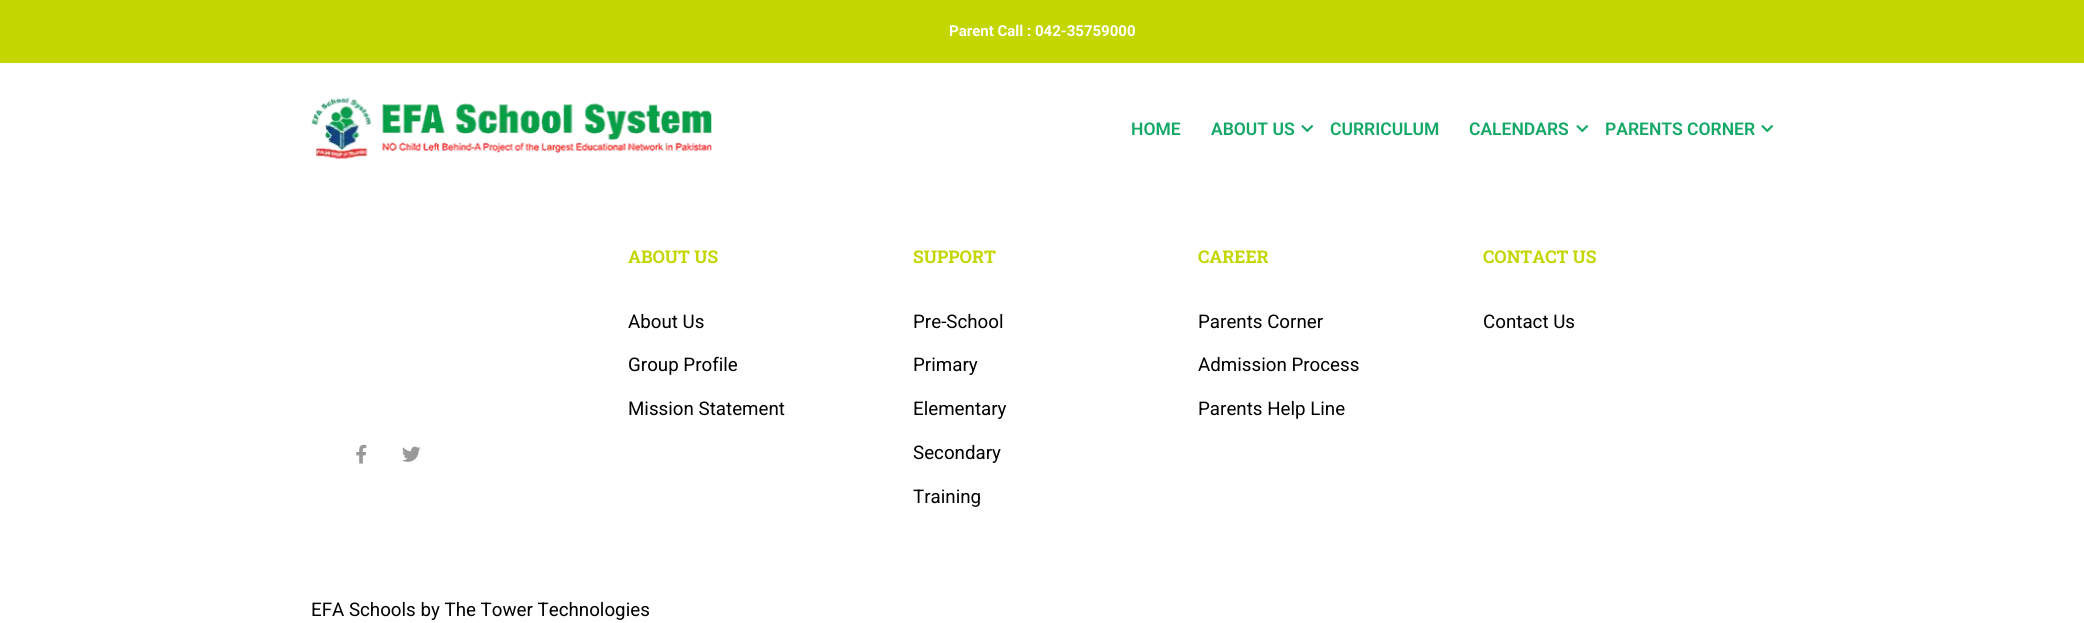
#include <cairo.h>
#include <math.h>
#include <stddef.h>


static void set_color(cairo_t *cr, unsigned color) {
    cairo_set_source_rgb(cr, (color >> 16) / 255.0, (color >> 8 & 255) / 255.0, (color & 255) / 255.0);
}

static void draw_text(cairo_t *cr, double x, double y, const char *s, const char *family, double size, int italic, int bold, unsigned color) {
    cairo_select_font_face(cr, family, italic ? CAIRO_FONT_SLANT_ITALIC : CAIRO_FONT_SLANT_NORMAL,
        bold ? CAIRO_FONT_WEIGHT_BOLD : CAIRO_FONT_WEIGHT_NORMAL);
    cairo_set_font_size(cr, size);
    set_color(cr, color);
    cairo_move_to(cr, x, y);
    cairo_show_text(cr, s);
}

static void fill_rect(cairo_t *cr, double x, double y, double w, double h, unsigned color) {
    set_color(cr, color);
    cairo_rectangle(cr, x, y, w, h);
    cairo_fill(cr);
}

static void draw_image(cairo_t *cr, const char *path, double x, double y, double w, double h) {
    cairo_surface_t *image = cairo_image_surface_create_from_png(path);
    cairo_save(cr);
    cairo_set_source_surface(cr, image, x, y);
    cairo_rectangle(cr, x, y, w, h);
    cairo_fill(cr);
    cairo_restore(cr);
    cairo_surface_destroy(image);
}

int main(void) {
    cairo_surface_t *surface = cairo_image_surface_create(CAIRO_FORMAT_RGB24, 2084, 623);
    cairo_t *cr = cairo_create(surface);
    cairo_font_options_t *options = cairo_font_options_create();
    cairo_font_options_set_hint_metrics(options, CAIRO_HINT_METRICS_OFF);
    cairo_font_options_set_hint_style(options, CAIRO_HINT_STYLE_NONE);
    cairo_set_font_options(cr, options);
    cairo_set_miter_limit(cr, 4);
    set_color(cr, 0xFFFFFF);
    cairo_paint(cr);
    fill_rect(cr, 0, 0, 2084, 63, 0xC3D600);
    draw_text(cr, 949, 36, "Parent Call : 042-35759000", "Roboto", 15, 0, 1, 0xFFFFFF);
    draw_image(cr, "assets/img1.png", 311, 96, 401, 63);
    draw_text(cr, 1131, 135, "HOME", "Roboto SemiBold", 17.5, 0, 0, 0x14A867);
    draw_text(cr, 1211, 135, "ABOUT US", "Roboto SemiBold", 17.5, 0, 0, 0x14A867);
    draw_image(cr, "assets/img2.png", 1301, 125, 13, 8);
    draw_text(cr, 1330, 135, "CURRICULUM", "Roboto SemiBold", 17.5, 0, 0, 0x14A867);
    draw_text(cr, 1469, 135, "CALENDARS", "Roboto SemiBold", 17.5, 0, 0, 0x14A867);
    draw_image(cr, "assets/img2.png", 1576, 125, 13, 8);
    draw_text(cr, 1605, 135, "PARENTS CORNER", "Roboto SemiBold", 17.5, 0, 0, 0x14A867);
    draw_image(cr, "assets/img2.png", 1761, 125, 13, 8);
    draw_text(cr, 628, 263, "ABOUT US", "Roboto Slab", 17.5, 0, 1, 0xC3D600);
    draw_text(cr, 628, 328, "About Us", "Roboto", 18.75, 0, 0, 0x000000);
    draw_text(cr, 628, 371, "Group Profile", "Roboto", 18.75, 0, 0, 0x000000);
    draw_text(cr, 628, 415, "Mission Statement", "Roboto", 18.75, 0, 0, 0x000000);
    draw_text(cr, 913, 263, "SUPPORT", "Roboto Slab", 17.5, 0, 1, 0xC3D600);
    draw_text(cr, 913, 328, "Pre-School", "Roboto", 18.75, 0, 0, 0x000000);
    draw_text(cr, 913, 371, "Primary", "Roboto", 18.75, 0, 0, 0x000000);
    draw_text(cr, 913, 415, "Elementary", "Roboto", 18.75, 0, 0, 0x000000);
    draw_text(cr, 913, 459, "Secondary", "Roboto", 18.75, 0, 0, 0x000000);
    draw_text(cr, 913, 503, "Training", "Roboto", 18.75, 0, 0, 0x000000);
    draw_text(cr, 1198, 263, "CAREER", "Roboto Slab", 17.5, 0, 1, 0xC3D600);
    draw_text(cr, 1198, 328, "Parents Corner", "Roboto", 18.75, 0, 0, 0x000000);
    draw_text(cr, 1198, 371, "Admission Process", "Roboto", 18.75, 0, 0, 0x000000);
    draw_text(cr, 1198, 415, "Parents Help Line", "Roboto", 18.75, 0, 0, 0x000000);
    draw_text(cr, 1483, 263, "CONTACT US", "Roboto Slab", 17.5, 0, 1, 0xC3D600);
    draw_text(cr, 1483, 328, "Contact Us", "Roboto", 18.75, 0, 0, 0x000000);
    draw_image(cr, "assets/img3.png", 356, 444, 11, 20);
    draw_image(cr, "assets/img4.png", 402, 446, 19, 16);
    draw_text(cr, 311, 616, "EFA Schools by The Tower Technologies", "Roboto", 18.75, 0, 0, 0x000000);
    cairo_surface_write_to_png(surface, "output.png");
    cairo_font_options_destroy(options);
    cairo_destroy(cr);
    cairo_surface_destroy(surface);
    return 0;
}
